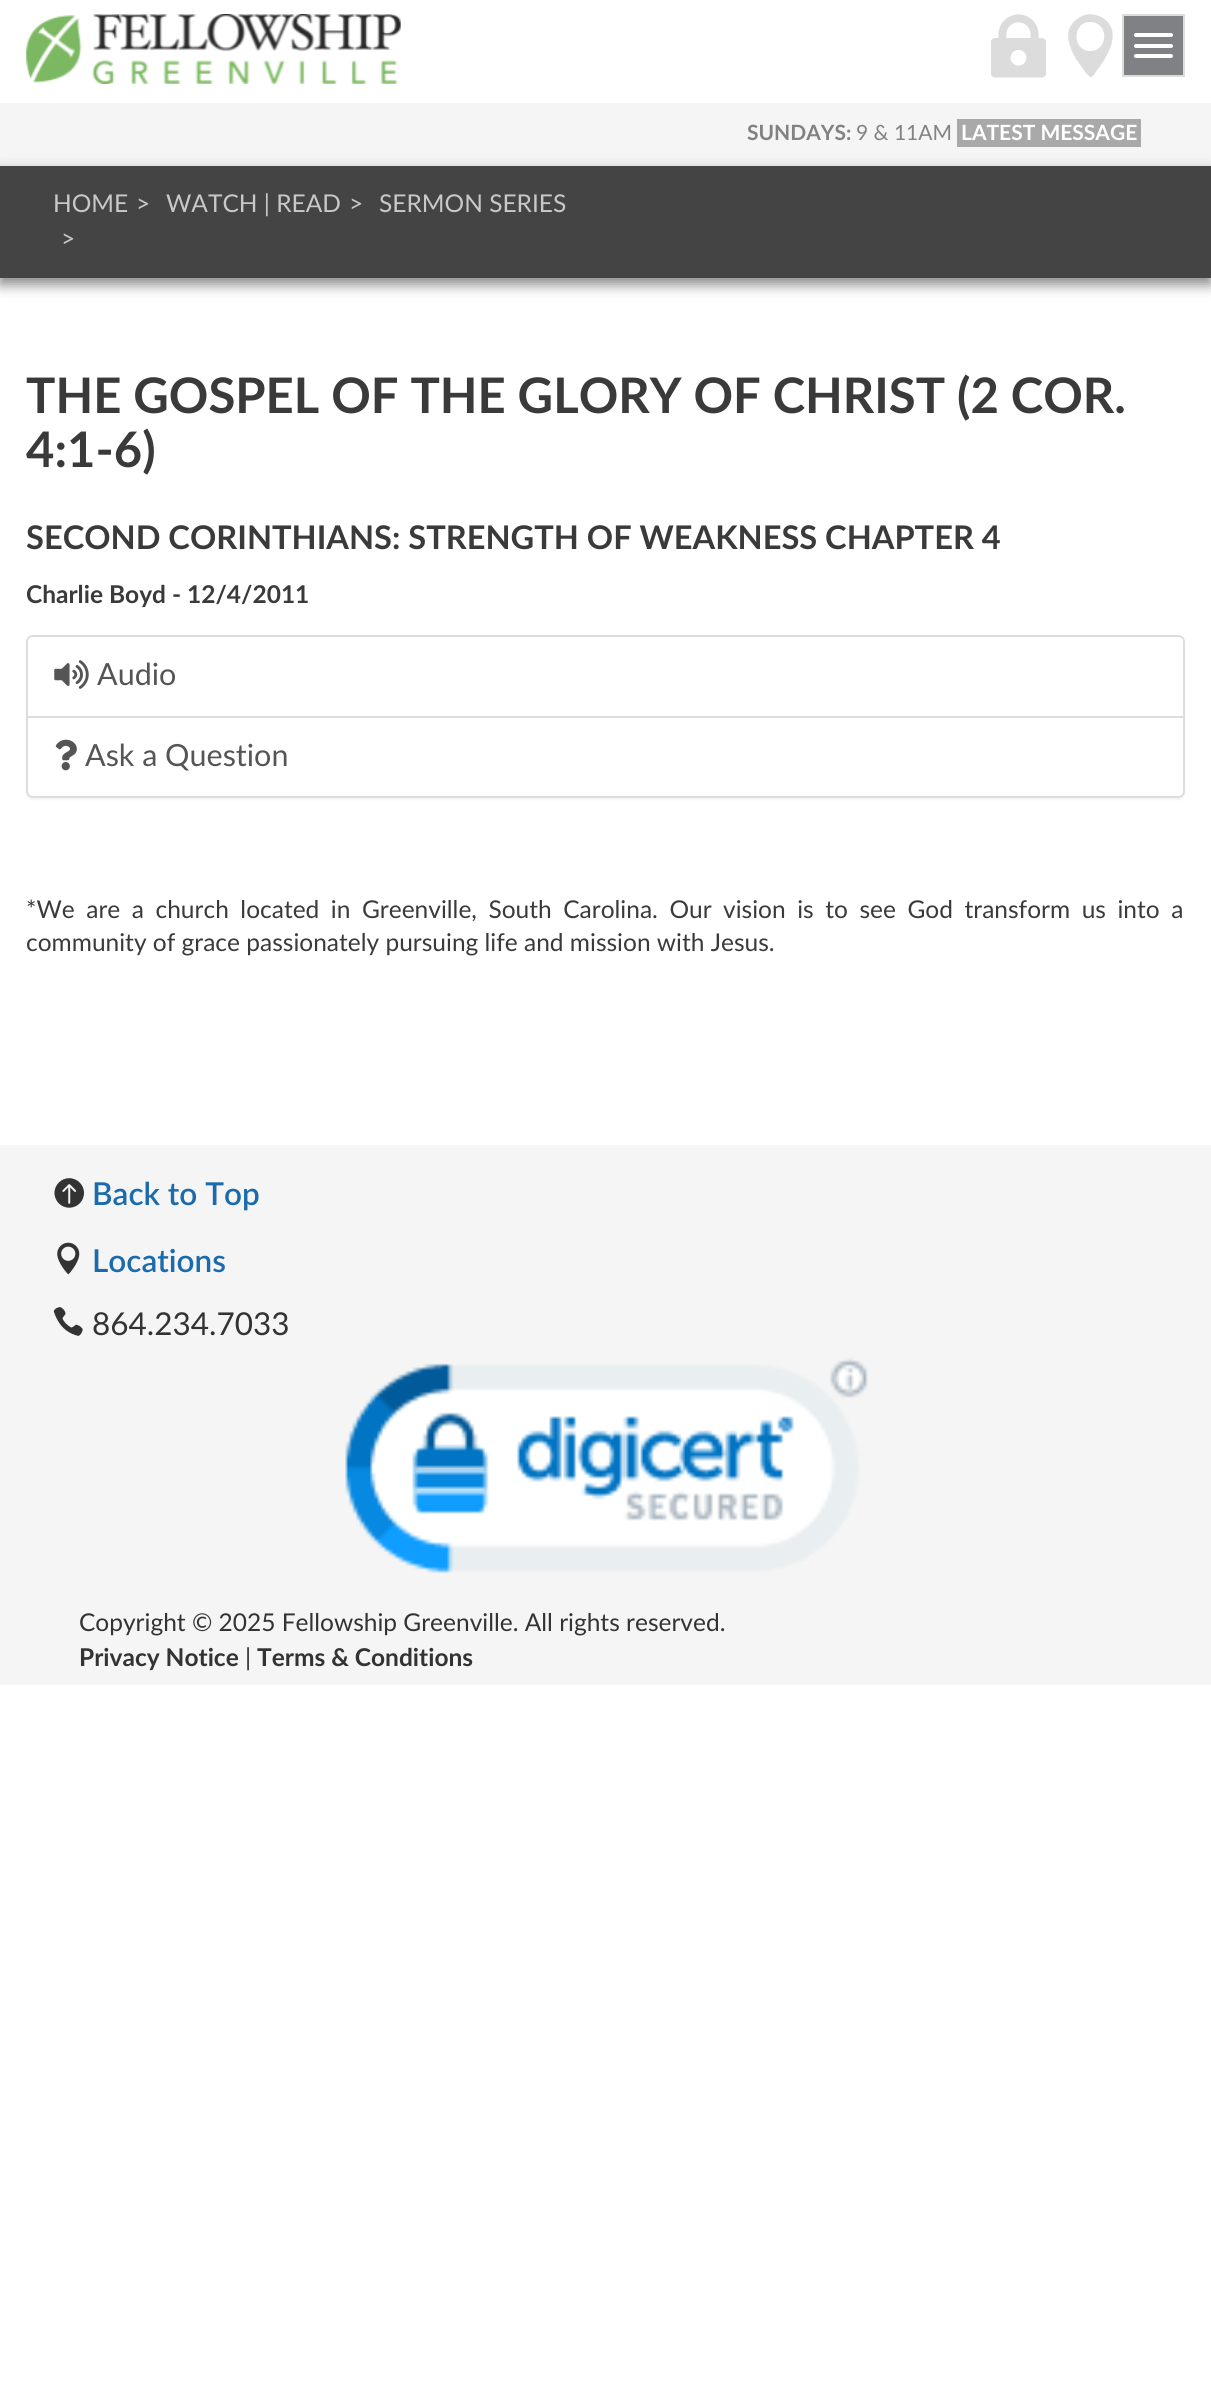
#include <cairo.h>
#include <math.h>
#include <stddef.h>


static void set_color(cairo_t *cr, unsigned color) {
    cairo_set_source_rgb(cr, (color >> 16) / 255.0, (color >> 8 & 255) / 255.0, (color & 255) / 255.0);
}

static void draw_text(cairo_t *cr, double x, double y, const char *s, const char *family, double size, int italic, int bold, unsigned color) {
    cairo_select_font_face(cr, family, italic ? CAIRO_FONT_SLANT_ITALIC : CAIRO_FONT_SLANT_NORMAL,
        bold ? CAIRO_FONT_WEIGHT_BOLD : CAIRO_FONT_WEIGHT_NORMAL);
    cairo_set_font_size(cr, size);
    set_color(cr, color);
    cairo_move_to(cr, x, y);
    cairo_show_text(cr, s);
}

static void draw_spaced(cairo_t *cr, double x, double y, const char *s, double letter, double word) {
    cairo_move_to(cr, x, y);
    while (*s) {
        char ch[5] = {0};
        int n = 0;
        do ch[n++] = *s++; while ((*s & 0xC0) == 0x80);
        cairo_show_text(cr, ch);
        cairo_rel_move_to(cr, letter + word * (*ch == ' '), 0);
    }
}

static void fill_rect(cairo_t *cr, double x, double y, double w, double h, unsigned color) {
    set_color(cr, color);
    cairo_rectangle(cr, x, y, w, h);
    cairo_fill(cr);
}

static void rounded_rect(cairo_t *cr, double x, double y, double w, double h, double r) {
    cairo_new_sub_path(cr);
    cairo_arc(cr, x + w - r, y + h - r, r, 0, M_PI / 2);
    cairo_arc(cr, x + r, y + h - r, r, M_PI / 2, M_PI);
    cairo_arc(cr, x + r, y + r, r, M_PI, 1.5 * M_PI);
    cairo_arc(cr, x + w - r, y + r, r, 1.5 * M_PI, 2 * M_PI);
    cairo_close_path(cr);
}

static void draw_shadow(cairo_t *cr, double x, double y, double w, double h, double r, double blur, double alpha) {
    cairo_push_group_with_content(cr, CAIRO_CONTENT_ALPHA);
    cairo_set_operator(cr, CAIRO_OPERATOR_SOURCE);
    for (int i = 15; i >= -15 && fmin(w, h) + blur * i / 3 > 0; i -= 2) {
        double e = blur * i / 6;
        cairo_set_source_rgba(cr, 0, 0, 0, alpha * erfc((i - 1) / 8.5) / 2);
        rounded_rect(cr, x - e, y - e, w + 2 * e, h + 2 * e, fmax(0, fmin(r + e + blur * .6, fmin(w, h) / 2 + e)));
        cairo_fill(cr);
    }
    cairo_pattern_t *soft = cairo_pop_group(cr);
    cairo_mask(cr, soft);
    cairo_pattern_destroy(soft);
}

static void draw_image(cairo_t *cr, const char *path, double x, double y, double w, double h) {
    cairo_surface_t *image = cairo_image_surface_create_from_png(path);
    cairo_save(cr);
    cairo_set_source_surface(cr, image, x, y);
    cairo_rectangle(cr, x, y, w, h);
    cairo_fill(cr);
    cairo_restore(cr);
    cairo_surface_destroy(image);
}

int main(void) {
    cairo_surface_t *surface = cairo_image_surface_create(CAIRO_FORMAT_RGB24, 1211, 2394);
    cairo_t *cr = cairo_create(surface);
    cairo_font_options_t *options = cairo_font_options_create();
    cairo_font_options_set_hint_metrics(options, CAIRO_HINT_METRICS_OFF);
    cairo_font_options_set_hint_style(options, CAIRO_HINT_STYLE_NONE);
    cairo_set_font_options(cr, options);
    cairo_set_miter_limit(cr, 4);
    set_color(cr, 0xFFFFFF);
    cairo_paint(cr);
    draw_image(cr, "assets/img1.png", 26, 14, 375, 70);
    draw_image(cr, "assets/img2.png", 991, 14, 55, 64);
    set_color(cr, 0xDCDCDC);
    cairo_new_path(cr);
    cairo_move_to(cr, 1089, 76);
    cairo_line_to(cr, 1086, 73);
    cairo_line_to(cr, 1076, 59);
    cairo_curve_to(cr, 1070, 48, 1064, 35, 1072, 24);
    cairo_curve_to(cr, 1074, 21, 1078, 18, 1082, 16);
    cairo_curve_to(cr, 1088, 13, 1096, 14, 1103, 18);
    cairo_curve_to(cr, 1124, 32, 1106, 59, 1095, 73);
    cairo_curve_to(cr, 1094, 75, 1091, 79, 1089, 76);
    cairo_close_path(cr);
    cairo_move_to(cr, 1090, 22);
    cairo_curve_to(cr, 1072, 22, 1072, 51, 1090, 51);
    cairo_curve_to(cr, 1109, 51, 1109, 22, 1090, 22);
    cairo_close_path(cr);
    cairo_fill(cr);
    set_color(cr, 0x7F8185);
    cairo_rectangle(cr, 1123, 15, 61, 61);
    cairo_fill_preserve(cr);
    set_color(cr, 0xDDDDDD);
    cairo_stroke(cr);
    set_color(cr, 0xFFFFFF);
    rounded_rect(cr, 1134, 33, 39, 4, 2);
    cairo_fill(cr);
    rounded_rect(cr, 1134, 44, 39, 4, 2);
    cairo_fill(cr);
    rounded_rect(cr, 1134, 54, 39, 4, 2);
    cairo_fill(cr);
    fill_rect(cr, 0, 103, 1211, 63, 0xF5F5F5);
    draw_text(cr, 747, 140, "SUNDAYS:", "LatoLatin", 21, 0, 1, 0x828282);
    draw_text(cr, 856, 140, "9 & 11AM", "LatoLatin", 21, 0, 0, 0x828282);
    fill_rect(cr, 957, 119, 184, 28, 0xA9A9A9);
    draw_text(cr, 961, 140, "LATEST MESSAGE", "LatoLatin", 21, 0, 1, 0xFFFFFF);
    set_color(cr, 0x000000);
    draw_shadow(cr, 0, 172, 1211, 112, 0, 7, 0.5);
    fill_rect(cr, 0, 166, 1211, 112, 0x444444);
    draw_text(cr, 53, 212, "HOME", "LatoLatin", 24.5, 0, 0, 0xC8C8C8);
    draw_text(cr, 136, 212, ">", "LatoLatin", 24.5, 0, 0, 0xC8C8C8);
    draw_text(cr, 166, 212, "WATCH | READ", "LatoLatin", 24.5, 0, 0, 0xC8C8C8);
    draw_text(cr, 349, 212, ">", "LatoLatin", 24.5, 0, 0, 0xC8C8C8);
    draw_text(cr, 379, 212, "SERMON SERIES", "LatoLatin", 24.5, 0, 0, 0xC8C8C8);
    draw_text(cr, 61, 247, ">", "LatoLatin", 24.5, 0, 0, 0xC8C8C8);
    draw_text(cr, 26, 413, "THE GOSPEL OF THE GLORY OF CHRIST (2 COR.", "LatoLatin", 49, 0, 1, 0x3A3A3A);
    draw_text(cr, 26, 467, "4:1-6)", "LatoLatin", 49, 0, 1, 0x3A3A3A);
    draw_text(cr, 26, 549, "SECOND CORINTHIANS: STRENGTH OF WEAKNESS CHAPTER 4", "LatoLatin", 32.6, 0, 1, 0x3A3A3A);
    draw_text(cr, 26, 603, "Charlie Boyd - 12/4/2011", "LatoLatin", 24.5, 0, 1, 0x3A3A3A);
    set_color(cr, 0x000000);
    draw_shadow(cr, 26, 637, 1159, 163, 7, 1, 0.05);
    rounded_rect(cr, 27, 636, 1157, 161, 6);
    set_color(cr, 0xDDDDDD);
    cairo_stroke(cr);
    set_color(cr, 0xFFFFFF);
    cairo_new_path(cr);
    cairo_move_to(cr, 33, 637);
    cairo_line_to(cr, 1178, 637);
    cairo_curve_to(cr, 1181, 637, 1183, 639, 1183, 642);
    cairo_line_to(cr, 1183, 718);
    cairo_line_to(cr, 28, 718);
    cairo_line_to(cr, 28, 642);
    cairo_curve_to(cr, 28, 639, 30, 637, 33, 637);
    cairo_close_path(cr);
    cairo_fill(cr);
    draw_image(cr, "assets/img3.png", 54, 660, 35, 29);
    draw_text(cr, 97, 685, "Audio", "LatoLatin", 30.5, 0, 0, 0x555555);
    set_color(cr, 0xFFFFFF);
    cairo_new_path(cr);
    cairo_move_to(cr, 28, 716);
    cairo_line_to(cr, 1183, 716);
    cairo_line_to(cr, 1183, 791);
    cairo_curve_to(cr, 1183, 794, 1181, 796, 1178, 796);
    cairo_line_to(cr, 33, 796);
    cairo_curve_to(cr, 30, 796, 28, 794, 28, 791);
    cairo_close_path(cr);
    cairo_fill(cr);
    fill_rect(cr, 28, 716, 1155, 2, 0xDDDDDD);
    draw_image(cr, "assets/img4.png", 55, 739, 22, 32);
    draw_text(cr, 85, 766, "Ask a Question", "LatoLatin", 30.5, 0, 0, 0x555555);
    cairo_set_font_size(cr, 24.5);
    set_color(cr, 0x3A3A3A);
    draw_spaced(cr, 26, 918, "*We are a church located in Greenville, South Carolina. Our vision is to see God transform us into a", 0, 5.25);
    draw_text(cr, 26, 951, "community of grace passionately pursuing life and mission with Jesus.", "LatoLatin", 24.5, 0, 0, 0x3A3A3A);
    fill_rect(cr, 0, 1145, 1211, 540, 0xF5F5F5);
    draw_image(cr, "assets/img5.png", 54, 1178, 30, 30);
    draw_text(cr, 92, 1205, "Back to Top", "Lato SemiBold", 31.5, 0, 0, 0x1B6BAC);
    draw_image(cr, "assets/img6.png", 57, 1242, 23, 33);
    draw_text(cr, 92, 1272, "Locations", "Lato SemiBold", 31.5, 0, 0, 0x1B6BAC);
    draw_image(cr, "assets/img7.png", 53, 1307, 30, 29);
    draw_text(cr, 92, 1335, "864.234.7033", "LatoLatin", 31.5, 0, 0, 0x333333);
    draw_image(cr, "assets/img8.png", 345, 1358, 523, 215);
    draw_text(cr, 79, 1631, "Copyright © 2025 Fellowship Greenville. All rights reserved.", "LatoLatin", 24.5, 0, 0, 0x333333);
    draw_text(cr, 79, 1666, "Privacy Notice", "LatoLatin", 24.5, 0, 1, 0x333333);
    draw_text(cr, 245, 1666, "|", "LatoLatin", 24.5, 0, 0, 0x333333);
    draw_text(cr, 257, 1666, "Terms & Conditions", "LatoLatin", 24.5, 0, 1, 0x333333);
    cairo_surface_write_to_png(surface, "output.png");
    cairo_font_options_destroy(options);
    cairo_destroy(cr);
    cairo_surface_destroy(surface);
    return 0;
}
